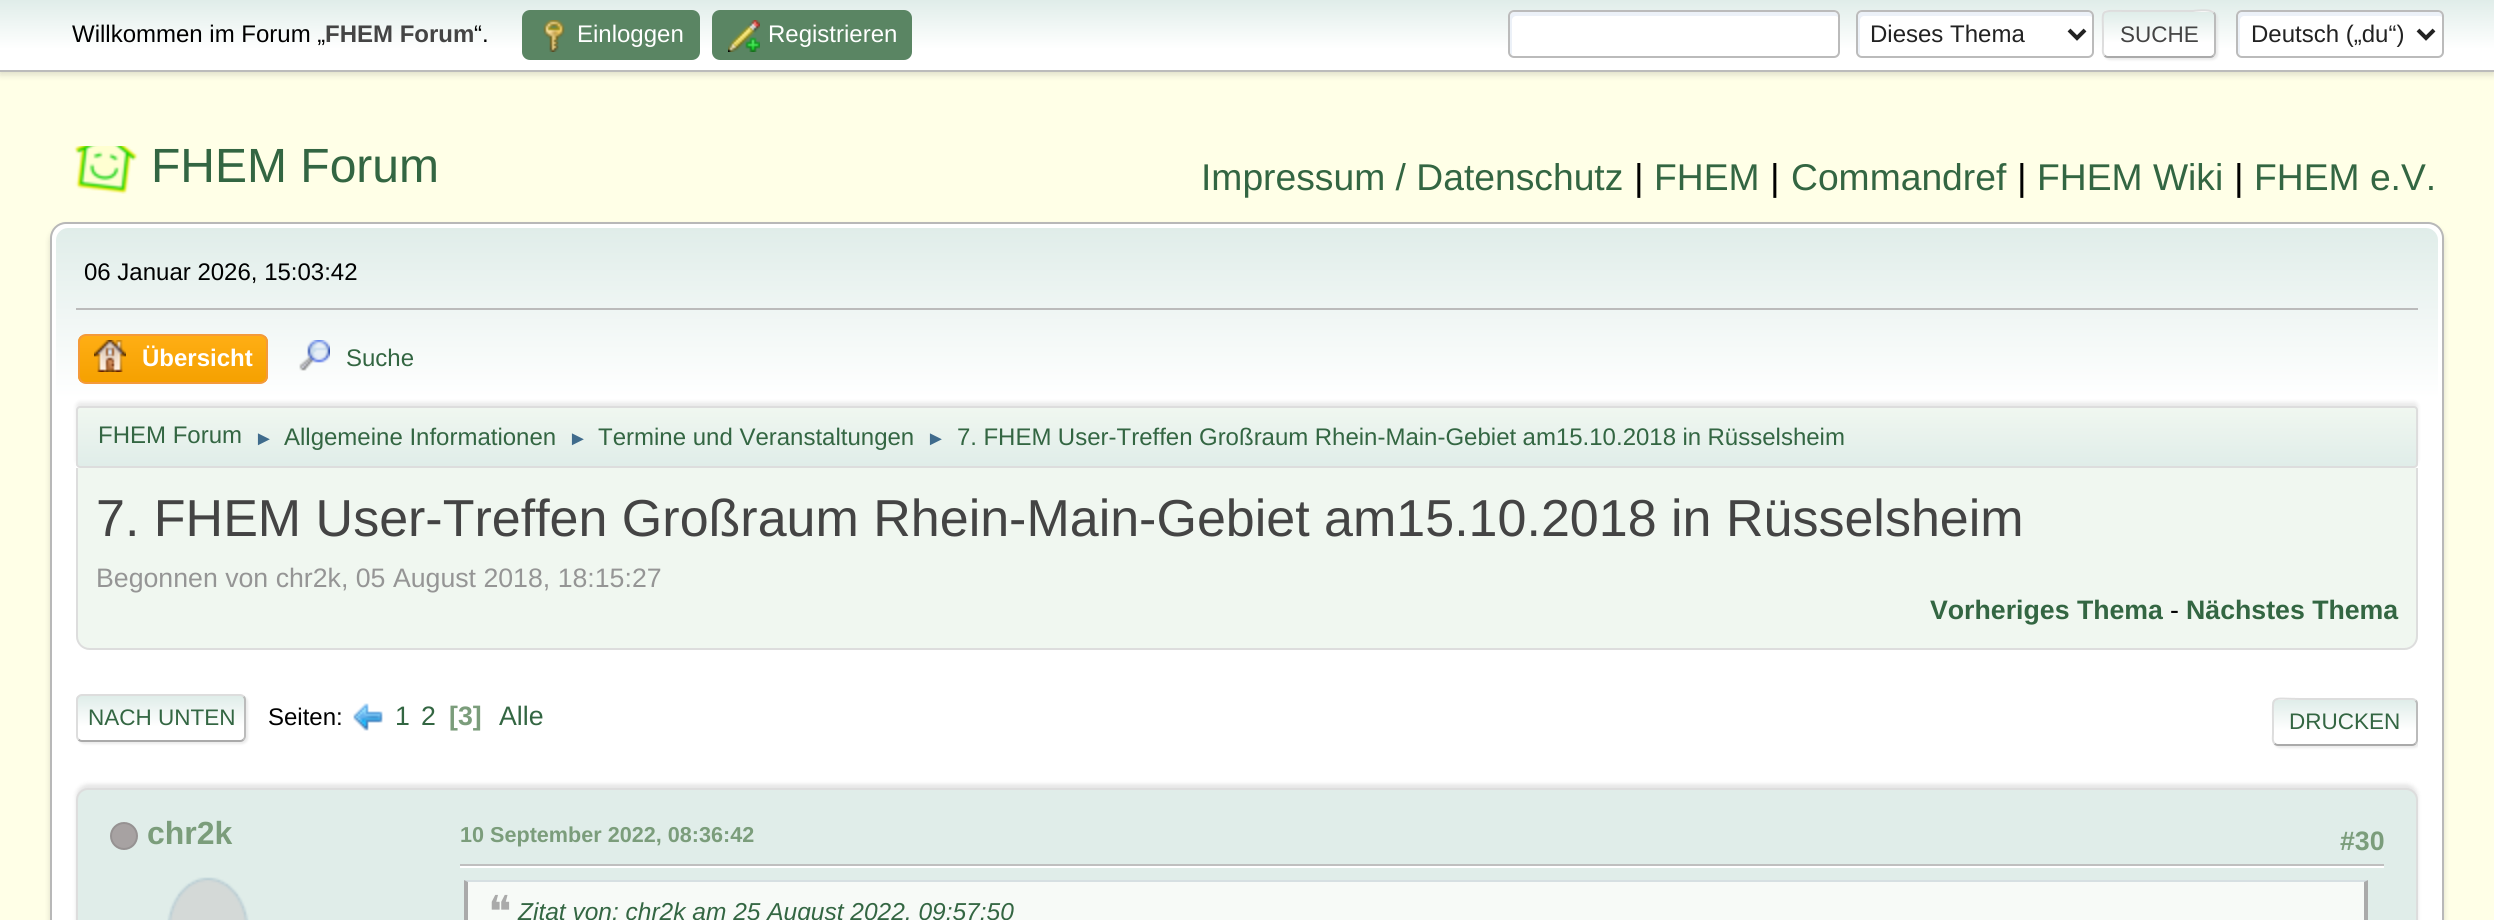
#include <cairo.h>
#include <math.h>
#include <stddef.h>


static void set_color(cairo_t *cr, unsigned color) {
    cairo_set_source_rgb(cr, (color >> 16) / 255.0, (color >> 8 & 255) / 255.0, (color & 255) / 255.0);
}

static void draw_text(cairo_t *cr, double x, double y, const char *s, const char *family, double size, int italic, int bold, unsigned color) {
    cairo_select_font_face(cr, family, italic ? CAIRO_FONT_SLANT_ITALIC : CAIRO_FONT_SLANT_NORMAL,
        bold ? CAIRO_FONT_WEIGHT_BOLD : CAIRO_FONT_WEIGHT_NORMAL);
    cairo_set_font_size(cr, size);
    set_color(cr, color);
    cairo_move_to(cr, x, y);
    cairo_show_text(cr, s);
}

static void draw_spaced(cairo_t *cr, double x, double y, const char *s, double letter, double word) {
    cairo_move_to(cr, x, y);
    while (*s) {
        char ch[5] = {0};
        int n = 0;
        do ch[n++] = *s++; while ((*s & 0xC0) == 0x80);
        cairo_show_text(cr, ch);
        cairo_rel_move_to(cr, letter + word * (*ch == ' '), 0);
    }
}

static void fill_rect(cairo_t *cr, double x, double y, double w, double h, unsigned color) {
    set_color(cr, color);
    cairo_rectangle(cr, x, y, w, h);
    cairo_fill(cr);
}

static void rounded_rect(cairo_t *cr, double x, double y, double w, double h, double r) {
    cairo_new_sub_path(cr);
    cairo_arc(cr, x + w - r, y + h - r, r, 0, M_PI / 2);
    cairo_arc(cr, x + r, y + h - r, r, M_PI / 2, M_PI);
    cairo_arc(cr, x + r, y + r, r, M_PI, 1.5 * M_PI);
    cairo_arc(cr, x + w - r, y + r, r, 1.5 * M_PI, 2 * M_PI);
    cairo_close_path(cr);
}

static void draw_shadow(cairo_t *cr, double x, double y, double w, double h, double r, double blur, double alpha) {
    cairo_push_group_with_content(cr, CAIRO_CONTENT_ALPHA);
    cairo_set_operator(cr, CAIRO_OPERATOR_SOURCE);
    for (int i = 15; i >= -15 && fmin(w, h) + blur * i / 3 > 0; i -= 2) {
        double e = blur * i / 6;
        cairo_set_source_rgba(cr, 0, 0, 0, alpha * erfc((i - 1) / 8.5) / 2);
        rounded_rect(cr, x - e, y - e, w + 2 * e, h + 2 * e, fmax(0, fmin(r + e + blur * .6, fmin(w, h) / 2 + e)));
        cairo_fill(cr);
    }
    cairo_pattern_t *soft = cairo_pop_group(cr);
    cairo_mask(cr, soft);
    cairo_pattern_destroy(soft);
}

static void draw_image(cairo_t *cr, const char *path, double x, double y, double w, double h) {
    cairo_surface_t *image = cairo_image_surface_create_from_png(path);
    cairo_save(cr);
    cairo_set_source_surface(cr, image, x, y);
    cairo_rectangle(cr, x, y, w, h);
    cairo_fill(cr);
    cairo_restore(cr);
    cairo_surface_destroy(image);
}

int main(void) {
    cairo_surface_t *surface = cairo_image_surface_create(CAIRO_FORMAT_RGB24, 2494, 920);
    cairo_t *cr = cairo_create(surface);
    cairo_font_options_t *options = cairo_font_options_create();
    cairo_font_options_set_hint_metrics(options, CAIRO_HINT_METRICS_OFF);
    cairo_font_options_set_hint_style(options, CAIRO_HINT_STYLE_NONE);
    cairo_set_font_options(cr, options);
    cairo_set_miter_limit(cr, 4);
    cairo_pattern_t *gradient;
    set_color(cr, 0xFFFFE7);
    cairo_paint(cr);
    set_color(cr, 0x000000);
    draw_shadow(cr, 0, 2, 2494, 72, 0, 4, 0.16);
    gradient = cairo_pattern_create_linear(1247, 0, 1247, 70);
    cairo_pattern_add_color_stop_rgba(gradient, 0, 0.878, 0.929, 0.914, 1);
    cairo_pattern_add_color_stop_rgba(gradient, 0.7, 1, 1, 1, 1);
    cairo_set_source(cr, gradient);
    cairo_pattern_destroy(gradient);
    cairo_rectangle(cr, 0, 0, 2494, 70);
    cairo_fill(cr);
    fill_rect(cr, 0, 70, 2494, 2, 0xBBBBBB);
    draw_text(cr, 72, 42, "Willkommen im Forum „", "Liberation Sans", 24, 0, 0, 0x000000);
    draw_text(cr, 325, 42, "FHEM Forum", "Liberation Sans", 24, 0, 1, 0x444444);
    draw_text(cr, 474, 42, "“.", "Liberation Sans", 24, 0, 0, 0x000000);
    set_color(cr, 0x5A8563);
    rounded_rect(cr, 523, 11, 176, 48, 7);
    cairo_fill_preserve(cr);
    cairo_stroke(cr);
    draw_image(cr, "assets/img1.png", 543, 20, 22, 32);
    draw_text(cr, 577, 42, "Einloggen", "Liberation Sans", 24, 0, 0, 0xFFFFFF);
    set_color(cr, 0x5A8563);
    rounded_rect(cr, 713, 11, 198, 48, 7);
    cairo_fill_preserve(cr);
    cairo_stroke(cr);
    draw_image(cr, "assets/img2.png", 728, 20, 32, 32);
    draw_text(cr, 768, 42, "Registrieren", "Liberation Sans", 24, 0, 0, 0xFFFFFF);
    rounded_rect(cr, 1508, 10, 332, 48, 6);
    cairo_fill(cr);
    set_color(cr, 0xECF1F8);
    cairo_new_path(cr);
    cairo_move_to(cr, 1516, 16);
    cairo_line_to(cr, 1836, 16);
    cairo_line_to(cr, 1838, 17);
    cairo_line_to(cr, 1838, 16);
    cairo_curve_to(cr, 1838, 14, 1836, 12, 1834, 12);
    cairo_line_to(cr, 1514, 12);
    cairo_curve_to(cr, 1512, 12, 1510, 14, 1510, 16);
    cairo_line_to(cr, 1510, 52);
    cairo_curve_to(cr, 1510, 53, 1511, 55, 1512, 55);
    cairo_line_to(cr, 1512, 20);
    cairo_curve_to(cr, 1512, 18, 1514, 16, 1516, 16);
    cairo_close_path(cr);
    cairo_fill(cr);
    rounded_rect(cr, 1509, 11, 330, 46, 5);
    set_color(cr, 0xBBBBBB);
    cairo_stroke(cr);
    set_color(cr, 0xFFFFFF);
    rounded_rect(cr, 1856, 10, 238, 48, 6);
    cairo_fill(cr);
    set_color(cr, 0xECF1F8);
    cairo_new_path(cr);
    cairo_move_to(cr, 1864, 16);
    cairo_line_to(cr, 2090, 16);
    cairo_line_to(cr, 2092, 17);
    cairo_line_to(cr, 2092, 16);
    cairo_curve_to(cr, 2092, 14, 2090, 12, 2088, 12);
    cairo_line_to(cr, 1862, 12);
    cairo_curve_to(cr, 1860, 12, 1858, 14, 1858, 16);
    cairo_line_to(cr, 1858, 52);
    cairo_curve_to(cr, 1858, 53, 1859, 55, 1860, 55);
    cairo_line_to(cr, 1860, 20);
    cairo_curve_to(cr, 1860, 18, 1862, 16, 1864, 16);
    cairo_close_path(cr);
    cairo_fill(cr);
    rounded_rect(cr, 1857, 11, 236, 46, 5);
    set_color(cr, 0xBBBBBB);
    cairo_stroke(cr);
    cairo_new_path(cr);
    cairo_move_to(cr, 2069, 30);
    cairo_line_to(cr, 2077, 38);
    cairo_line_to(cr, 2085, 30);
    set_color(cr, 0x222222);
    cairo_set_line_width(cr, 4);
    cairo_stroke(cr);
    draw_text(cr, 1870, 42, "Dieses Thema", "Liberation Sans", 24, 0, 0, 0x222222);
    set_color(cr, 0xDDDDDD);
    draw_shadow(cr, 2104, 12, 114, 48, 6, 1, 0.57);
    cairo_save(cr);
    rounded_rect(cr, 2102, 10, 114, 48, 6);
    cairo_clip(cr);
    gradient = cairo_pattern_create_linear(2159, -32, 2159, 12);
    cairo_pattern_add_color_stop_rgba(gradient, 0, 0.878, 0.929, 0.914, 1);
    cairo_pattern_add_color_stop_rgba(gradient, 0.7, 1, 1, 1, 1);
    cairo_set_source(cr, gradient);
    cairo_pattern_destroy(gradient);
    cairo_rectangle(cr, 2102, 10, 114, 2);
    cairo_fill(cr);
    gradient = cairo_pattern_create_linear(2159, 12, 2159, 56);
    cairo_pattern_add_color_stop_rgba(gradient, 0, 0.878, 0.929, 0.914, 1);
    cairo_pattern_add_color_stop_rgba(gradient, 0.7, 1, 1, 1, 1);
    cairo_set_source(cr, gradient);
    cairo_pattern_destroy(gradient);
    cairo_rectangle(cr, 2102, 12, 114, 44);
    cairo_fill(cr);
    cairo_restore(cr);
    cairo_new_path(cr);
    cairo_move_to(cr, 2213.5, 12.5);
    cairo_curve_to(cr, 2214.5, 13.5, 2215, 14.5, 2215, 16);
    cairo_line_to(cr, 2215, 52);
    cairo_curve_to(cr, 2215, 53.5, 2214.5, 54.5, 2213.5, 55.5);
    set_color(cr, 0xBBBBBB);
    cairo_set_line_width(cr, 2);
    cairo_stroke(cr);
    cairo_new_path(cr);
    cairo_move_to(cr, 2213.5, 55.5);
    cairo_curve_to(cr, 2212.5, 56.5, 2211.5, 57, 2210, 57);
    cairo_line_to(cr, 2108, 57);
    cairo_curve_to(cr, 2106.5, 57, 2105.5, 56.5, 2104.5, 55.5);
    set_color(cr, 0xAAAAAA);
    cairo_stroke(cr);
    cairo_new_path(cr);
    cairo_move_to(cr, 2104.5, 55.5);
    cairo_curve_to(cr, 2102, 53, 2103, 48.5, 2103, 46);
    cairo_line_to(cr, 2103, 34);
    cairo_curve_to(cr, 2103, 8, 2098.5, 11, 2125, 11);
    cairo_line_to(cr, 2193, 11);
    cairo_curve_to(cr, 2193, 11, 2209.5, 8.5, 2213.5, 12.5);
    set_color(cr, 0xDDDDDD);
    cairo_stroke(cr);
    draw_text(cr, 2120, 42, "SUCHE", "Liberation Sans", 22.5, 0, 0, 0x444444);
    set_color(cr, 0xFFFFFF);
    rounded_rect(cr, 2236, 10, 208, 48, 6);
    cairo_fill(cr);
    set_color(cr, 0xECF1F8);
    cairo_new_path(cr);
    cairo_move_to(cr, 2244, 16);
    cairo_line_to(cr, 2440, 16);
    cairo_line_to(cr, 2442, 17);
    cairo_line_to(cr, 2442, 16);
    cairo_curve_to(cr, 2442, 14, 2440, 12, 2438, 12);
    cairo_line_to(cr, 2242, 12);
    cairo_curve_to(cr, 2240, 12, 2238, 14, 2238, 16);
    cairo_line_to(cr, 2238, 52);
    cairo_curve_to(cr, 2238, 53, 2239, 55, 2240, 55);
    cairo_line_to(cr, 2240, 20);
    cairo_curve_to(cr, 2240, 18, 2242, 16, 2244, 16);
    cairo_close_path(cr);
    cairo_fill(cr);
    rounded_rect(cr, 2237, 11, 206, 46, 5);
    set_color(cr, 0xBBBBBB);
    cairo_stroke(cr);
    cairo_new_path(cr);
    cairo_move_to(cr, 2418, 30);
    cairo_line_to(cr, 2426, 38);
    cairo_line_to(cr, 2434, 30);
    set_color(cr, 0x222222);
    cairo_set_line_width(cr, 4);
    cairo_stroke(cr);
    draw_text(cr, 2251, 42, "Deutsch („du“)", "Liberation Sans", 24, 0, 0, 0x222222);
    draw_image(cr, "assets/img3.png", 74, 146, 64, 48);
    draw_text(cr, 151, 182, "FHEM Forum", "Liberation Sans", 48, 0, 0, 0x336642);
    draw_text(cr, 1201, 190, "Impressum / Datenschutz", "Liberation Sans", 37.25, 0, 0, 0x336642);
    draw_text(cr, 1634, 190, "|", "Liberation Sans", 37.25, 0, 0, 0x000000);
    draw_text(cr, 1654, 190, "FHEM", "Liberation Sans", 37.25, 0, 0, 0x336642);
    draw_text(cr, 1770, 190, "|", "Liberation Sans", 37.25, 0, 0, 0x000000);
    draw_text(cr, 1791, 190, "Commandref", "Liberation Sans", 37.25, 0, 0, 0x336642);
    draw_text(cr, 2017, 190, "|", "Liberation Sans", 37.25, 0, 0, 0x000000);
    draw_text(cr, 2037, 190, "FHEM Wiki", "Liberation Sans", 37.25, 0, 0, 0x336642);
    draw_text(cr, 2234, 190, "|", "Liberation Sans", 37.25, 0, 0, 0x000000);
    draw_text(cr, 2254, 190, "FHEM e.V.", "Liberation Sans", 37.25, 0, 0, 0x336642);
    set_color(cr, 0x000000);
    draw_shadow(cr, 50, 226, 2394, 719, 16, 3, 0.14);
    set_color(cr, 0xFFFFFF);
    rounded_rect(cr, 51, 223, 2392, 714, 15);
    cairo_fill_preserve(cr);
    set_color(cr, 0xB8B8B8);
    cairo_set_line_width(cr, 2);
    cairo_stroke(cr);
    gradient = cairo_pattern_create_linear(1247, 228, 1247, 472);
    cairo_pattern_add_color_stop_rgba(gradient, 0, 0.878, 0.929, 0.914, 1);
    cairo_pattern_add_color_stop_rgba(gradient, 0.7, 1, 1, 1, 1);
    cairo_set_source(cr, gradient);
    cairo_pattern_destroy(gradient);
    cairo_new_path(cr);
    cairo_move_to(cr, 68, 228);
    cairo_line_to(cr, 2426, 228);
    cairo_curve_to(cr, 2432.5, 228, 2438, 233.5, 2438, 240);
    cairo_line_to(cr, 2438, 472);
    cairo_line_to(cr, 56, 472);
    cairo_line_to(cr, 56, 240);
    cairo_curve_to(cr, 56, 233.5, 61.5, 228, 68, 228);
    cairo_close_path(cr);
    cairo_fill(cr);
    fill_rect(cr, 76, 308, 2342, 2, 0xBBBBBB);
    draw_text(cr, 84, 280, "06 Januar 2026, 15:03:42", "Liberation Sans", 24, 0, 0, 0x000000);
    cairo_save(cr);
    rounded_rect(cr, 78, 334, 190, 50, 8);
    cairo_clip(cr);
    gradient = cairo_pattern_create_linear(173, 336, 173, 382);
    cairo_pattern_add_color_stop_rgba(gradient, 0, 1, 0.682, 0.078, 1);
    cairo_pattern_add_color_stop_rgba(gradient, 1, 0.961, 0.631, 0, 1);
    cairo_set_source(cr, gradient);
    cairo_pattern_destroy(gradient);
    cairo_rectangle(cr, 78, 336, 190, 46);
    cairo_fill(cr);
    cairo_restore(cr);
    rounded_rect(cr, 79, 335, 188, 48, 7);
    set_color(cr, 0xF49A3A);
    cairo_stroke(cr);
    draw_image(cr, "assets/img4.png", 94, 340, 32, 32);
    draw_text(cr, 142, 366, "Übersicht", "Liberation Sans", 24, 0, 1, 0xFFFFFF);
    draw_image(cr, "assets/img5.png", 299, 340, 31, 31);
    draw_text(cr, 346, 366, "Suche", "Liberation Sans", 24, 0, 0, 0x336642);
    set_color(cr, 0x000000);
    draw_shadow(cr, 76, 402, 2342, 62, 4, 2, 0.08);
    cairo_save(cr);
    rounded_rect(cr, 76, 406, 2342, 62, 4);
    cairo_clip(cr);
    gradient = cairo_pattern_create_linear(1247, 408, 1247, 466);
    cairo_pattern_add_color_stop_rgba(gradient, 0, 0.941, 0.969, 0.941, 1);
    cairo_pattern_add_color_stop_rgba(gradient, 1, 0.878, 0.929, 0.914, 1);
    cairo_set_source(cr, gradient);
    cairo_pattern_destroy(gradient);
    cairo_rectangle(cr, 76, 408, 2342, 58);
    cairo_fill(cr);
    cairo_restore(cr);
    rounded_rect(cr, 77, 407, 2340, 60, 3);
    set_color(cr, 0xDDDDDD);
    cairo_stroke(cr);
    draw_text(cr, 98, 443, "FHEM Forum", "Liberation Sans", 24, 0, 0, 0x336642);
    draw_text(cr, 254, 445, "►", "Liberation Sans", 20, 0, 0, 0x3F6B8C);
    draw_text(cr, 284, 445, "Allgemeine Informationen", "Liberation Sans", 24, 0, 0, 0x336642);
    draw_text(cr, 568, 445, "►", "Liberation Sans", 20, 0, 0, 0x3F6B8C);
    draw_text(cr, 598, 445, "Termine und Veranstaltungen", "Liberation Sans", 24, 0, 0, 0x336642);
    draw_text(cr, 926, 445, "►", "Liberation Sans", 20, 0, 0, 0x3F6B8C);
    cairo_set_font_size(cr, 24);
    set_color(cr, 0x336642);
    draw_spaced(cr, 957, 445, "7. FHEM User-Treffen Großraum Rhein-Main-Gebiet am15.10.2018 in Rüsselsheim", 0, -0.25);
    set_color(cr, 0xF0F7F0);
    cairo_new_path(cr);
    cairo_move_to(cr, 76, 468);
    cairo_line_to(cr, 2418, 468);
    cairo_line_to(cr, 2418, 636);
    cairo_curve_to(cr, 2418, 643.5, 2411.5, 650, 2404, 650);
    cairo_line_to(cr, 90, 650);
    cairo_curve_to(cr, 82.5, 650, 76, 643.5, 76, 636);
    cairo_close_path(cr);
    cairo_fill(cr);
    set_color(cr, 0xDDDDDD);
    cairo_set_fill_rule(cr, CAIRO_FILL_RULE_EVEN_ODD);
    cairo_new_path(cr);
    cairo_move_to(cr, 76, 468);
    cairo_line_to(cr, 2418, 468);
    cairo_line_to(cr, 2418, 636);
    cairo_curve_to(cr, 2418, 644, 2412, 650, 2404, 650);
    cairo_line_to(cr, 90, 650);
    cairo_curve_to(cr, 82, 650, 76, 644, 76, 636);
    cairo_close_path(cr);
    cairo_move_to(cr, 78, 468);
    cairo_line_to(cr, 2416, 468);
    cairo_line_to(cr, 2416, 636);
    cairo_curve_to(cr, 2416, 643, 2411, 648, 2404, 648);
    cairo_line_to(cr, 90, 648);
    cairo_curve_to(cr, 83, 648, 78, 643, 78, 636);
    cairo_close_path(cr);
    cairo_fill(cr);
    draw_text(cr, 96, 536, "7. FHEM User-Treffen Großraum Rhein-Main-Gebiet am15.10.2018 in Rüsselsheim", "Liberation Sans", 52, 0, 0, 0x444444);
    draw_text(cr, 96, 587, "Begonnen von chr2k, 05 August 2018, 18:15:27", "Liberation Sans", 26.7, 0, 0, 0x959595);
    draw_text(cr, 1930, 619, "Vorheriges Thema", "Liberation Sans", 26.7, 0, 1, 0x336642);
    draw_text(cr, 2170, 619, "-", "Liberation Sans", 26.7, 0, 0, 0x000000);
    draw_text(cr, 2186, 619, "Nächstes Thema", "Liberation Sans", 26.7, 0, 1, 0x336642);
    set_color(cr, 0xDDDDDD);
    draw_shadow(cr, 78, 696, 170, 48, 6, 1, 0.57);
    cairo_save(cr);
    cairo_set_fill_rule(cr, CAIRO_FILL_RULE_WINDING);
    rounded_rect(cr, 76, 694, 170, 48, 6);
    cairo_clip(cr);
    gradient = cairo_pattern_create_linear(161, 696, 161, 740);
    cairo_pattern_add_color_stop_rgba(gradient, 0, 0.878, 0.929, 0.914, 1);
    cairo_pattern_add_color_stop_rgba(gradient, 0.7, 1, 1, 1, 1);
    cairo_set_source(cr, gradient);
    cairo_pattern_destroy(gradient);
    cairo_rectangle(cr, 76, 696, 170, 44);
    cairo_fill(cr);
    cairo_restore(cr);
    cairo_new_path(cr);
    cairo_move_to(cr, 243.5, 696.5);
    cairo_curve_to(cr, 244.5, 697.5, 245, 698.5, 245, 700);
    cairo_line_to(cr, 245, 736);
    cairo_curve_to(cr, 245, 737.5, 244.5, 738.5, 243.5, 739.5);
    set_color(cr, 0xBBBBBB);
    cairo_stroke(cr);
    cairo_new_path(cr);
    cairo_move_to(cr, 243.5, 739.5);
    cairo_curve_to(cr, 242.5, 740.5, 241.5, 741, 240, 741);
    cairo_line_to(cr, 82, 741);
    cairo_curve_to(cr, 80.5, 741, 79.5, 740.5, 78.5, 739.5);
    set_color(cr, 0xAAAAAA);
    cairo_stroke(cr);
    cairo_new_path(cr);
    cairo_move_to(cr, 78.5, 739.5);
    cairo_curve_to(cr, 77.5, 738.5, 77, 737.5, 77, 736);
    cairo_line_to(cr, 77, 700);
    cairo_curve_to(cr, 77, 698.5, 77.5, 697.5, 78.5, 696.5);
    cairo_curve_to(cr, 79.5, 695.5, 80.5, 695, 82, 695);
    cairo_line_to(cr, 240, 695);
    cairo_curve_to(cr, 241.5, 695, 242.5, 695.5, 243.5, 696.5);
    set_color(cr, 0xDDDDDD);
    cairo_stroke(cr);
    draw_text(cr, 88, 725, "NACH UNTEN", "Liberation Sans", 22.5, 0, 0, 0x336642);
    draw_text(cr, 268, 725, "Seiten:", "Liberation Sans", 24, 0, 0, 0x000000);
    draw_image(cr, "assets/img6.png", 353, 703, 30, 28);
    draw_text(cr, 395, 725, "1", "Liberation Sans", 26.7, 0, 0, 0x336642);
    draw_text(cr, 421, 725, "2", "Liberation Sans", 26.7, 0, 0, 0x336642);
    draw_text(cr, 449, 725, "[3]", "Liberation Sans", 26.7, 0, 1, 0x7B9D7B);
    draw_text(cr, 499, 725, "Alle", "Liberation Sans", 26.7, 0, 0, 0x336642);
    cairo_save(cr);
    cairo_set_fill_rule(cr, CAIRO_FILL_RULE_WINDING);
    cairo_rectangle(cr, 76, 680, 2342, 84);
    cairo_clip(cr);
    set_color(cr, 0xDDDDDD);
    draw_shadow(cr, 2274, 700, 146, 48, 6, 1, 0.57);
    cairo_restore(cr);
    set_color(cr, 0xFFFFFF);
    rounded_rect(cr, 2272, 698, 146, 48, 6);
    cairo_fill(cr);
    cairo_save(cr);
    cairo_set_fill_rule(cr, CAIRO_FILL_RULE_WINDING);
    rounded_rect(cr, 2272, 698, 146, 48, 6);
    cairo_clip(cr);
    gradient = cairo_pattern_create_linear(2345, 700, 2345, 744);
    cairo_pattern_add_color_stop_rgba(gradient, 0, 0.878, 0.929, 0.914, 1);
    cairo_pattern_add_color_stop_rgba(gradient, 0.7, 1, 1, 1, 1);
    cairo_set_source(cr, gradient);
    cairo_pattern_destroy(gradient);
    cairo_rectangle(cr, 2272, 700, 146, 44);
    cairo_fill(cr);
    cairo_restore(cr);
    cairo_new_path(cr);
    cairo_move_to(cr, 2415.5, 700.5);
    cairo_curve_to(cr, 2416.5, 701.5, 2417, 702.5, 2417, 704);
    cairo_line_to(cr, 2417, 740);
    cairo_curve_to(cr, 2417, 741.5, 2416.5, 742.5, 2415.5, 743.5);
    set_color(cr, 0xBBBBBB);
    cairo_stroke(cr);
    cairo_new_path(cr);
    cairo_move_to(cr, 2415.5, 743.5);
    cairo_curve_to(cr, 2414.5, 744.5, 2413.5, 745, 2412, 745);
    cairo_line_to(cr, 2278, 745);
    cairo_curve_to(cr, 2276.5, 745, 2275.5, 744.5, 2274.5, 743.5);
    set_color(cr, 0xAAAAAA);
    cairo_stroke(cr);
    cairo_new_path(cr);
    cairo_move_to(cr, 2274.5, 743.5);
    cairo_curve_to(cr, 2272, 741, 2273, 736.5, 2273, 734);
    cairo_line_to(cr, 2273, 722);
    cairo_curve_to(cr, 2273, 693.5, 2269.5, 699, 2300.5, 699);
    cairo_line_to(cr, 2412, 699);
    cairo_curve_to(cr, 2413.5, 699, 2414.5, 699.5, 2415.5, 700.5);
    set_color(cr, 0xDDDDDD);
    cairo_stroke(cr);
    draw_text(cr, 2289, 729, "DRUCKEN", "Liberation Sans", 22.5, 0, 0, 0x336642);
    set_color(cr, 0x000000);
    draw_shadow(cr, 76, 784, 2342, 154, 12, 2, 0.1);
    set_color(cr, 0xE0EDE9);
    rounded_rect(cr, 77, 789, 2340, 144, 11);
    cairo_fill_preserve(cr);
    set_color(cr, 0xDDDDDD);
    cairo_stroke(cr);
    set_color(cr, 0xA7A2A2);
    cairo_arc(cr, 124, 836, 13, 0, 2 * M_PI);
    cairo_fill_preserve(cr);
    set_color(cr, 0x969292);
    cairo_stroke(cr);
    draw_text(cr, 147, 844, "chr2k", "Liberation Sans", 32, 0, 1, 0x7B9D7B);
    draw_image(cr, "assets/img7.png", 167, 877, 82, 43);
    draw_text(cr, 460, 842, "10 September 2022, 08:36:42", "Liberation Sans", 21.6, 0, 1, 0x7B9D7B);
    draw_text(cr, 2340, 850, "#30", "Liberation Sans", 26.7, 0, 1, 0x7B9D7B);
    fill_rect(cr, 460, 866, 1924, 2, 0xFFFFFF);
    fill_rect(cr, 460, 864, 1924, 2, 0xBFBFBF);
    fill_rect(cr, 468, 882, 1896, 38, 0xF7FAF7);
    set_color(cr, 0xD6DFE2);
    cairo_set_fill_rule(cr, CAIRO_FILL_RULE_WINDING);
    cairo_new_path(cr);
    cairo_move_to(cr, 464, 880);
    cairo_line_to(cr, 2368, 880);
    cairo_line_to(cr, 2364, 882);
    cairo_line_to(cr, 468, 882);
    cairo_close_path(cr);
    cairo_fill(cr);
    set_color(cr, 0xAAAAAA);
    cairo_new_path(cr);
    cairo_move_to(cr, 2368, 880);
    cairo_line_to(cr, 2368, 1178);
    cairo_line_to(cr, 2364, 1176);
    cairo_line_to(cr, 2364, 882);
    cairo_close_path(cr);
    cairo_fill(cr);
    cairo_new_path(cr);
    cairo_move_to(cr, 464, 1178);
    cairo_line_to(cr, 464, 880);
    cairo_line_to(cr, 468, 882);
    cairo_line_to(cr, 468, 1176);
    cairo_close_path(cr);
    cairo_fill(cr);
    draw_text(cr, 488, 927, "❝", "DejaVu Sans", 44, 0, 0, 0xAAAAAA);
    draw_text(cr, 518, 920, "Zitat von: chr2k am 25 August 2022, 09:57:50", "Liberation Sans", 24.5, 1, 0, 0x336642);
    cairo_surface_write_to_png(surface, "output.png");
    cairo_font_options_destroy(options);
    cairo_destroy(cr);
    cairo_surface_destroy(surface);
    return 0;
}
